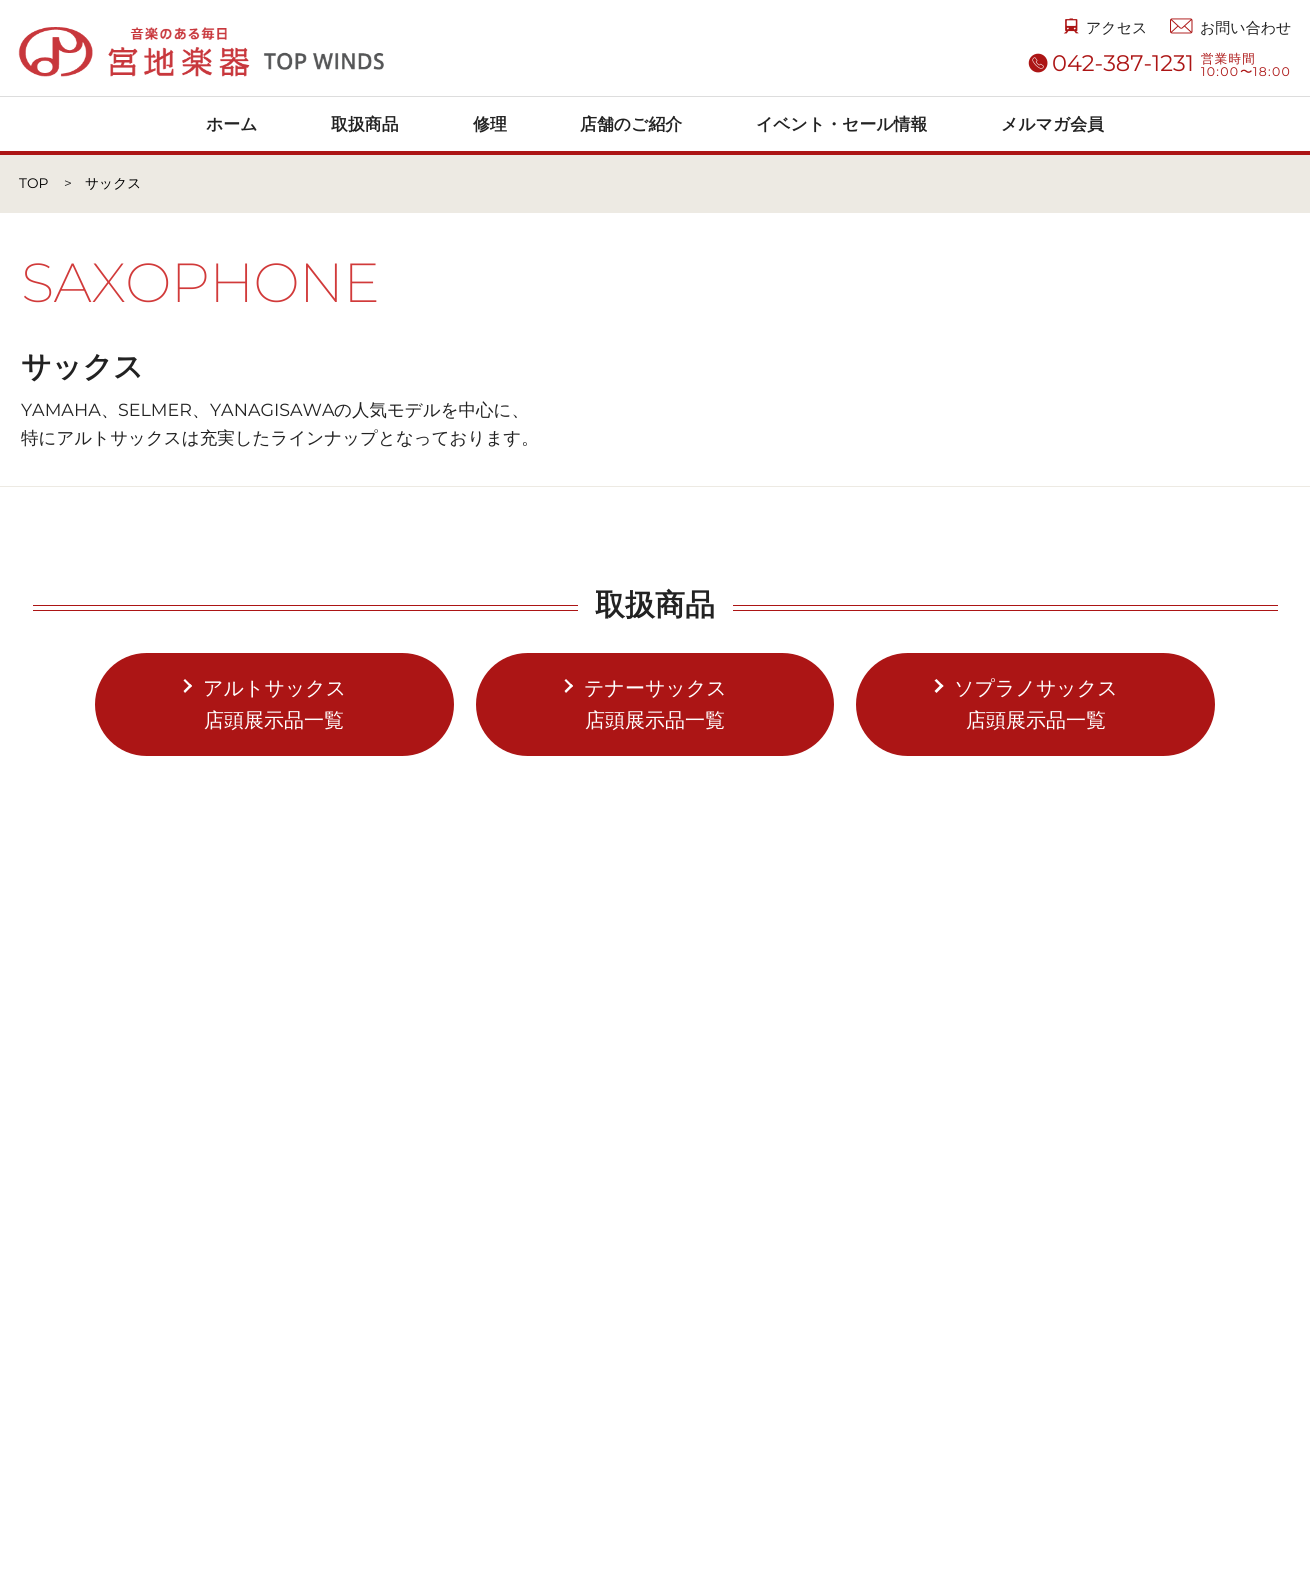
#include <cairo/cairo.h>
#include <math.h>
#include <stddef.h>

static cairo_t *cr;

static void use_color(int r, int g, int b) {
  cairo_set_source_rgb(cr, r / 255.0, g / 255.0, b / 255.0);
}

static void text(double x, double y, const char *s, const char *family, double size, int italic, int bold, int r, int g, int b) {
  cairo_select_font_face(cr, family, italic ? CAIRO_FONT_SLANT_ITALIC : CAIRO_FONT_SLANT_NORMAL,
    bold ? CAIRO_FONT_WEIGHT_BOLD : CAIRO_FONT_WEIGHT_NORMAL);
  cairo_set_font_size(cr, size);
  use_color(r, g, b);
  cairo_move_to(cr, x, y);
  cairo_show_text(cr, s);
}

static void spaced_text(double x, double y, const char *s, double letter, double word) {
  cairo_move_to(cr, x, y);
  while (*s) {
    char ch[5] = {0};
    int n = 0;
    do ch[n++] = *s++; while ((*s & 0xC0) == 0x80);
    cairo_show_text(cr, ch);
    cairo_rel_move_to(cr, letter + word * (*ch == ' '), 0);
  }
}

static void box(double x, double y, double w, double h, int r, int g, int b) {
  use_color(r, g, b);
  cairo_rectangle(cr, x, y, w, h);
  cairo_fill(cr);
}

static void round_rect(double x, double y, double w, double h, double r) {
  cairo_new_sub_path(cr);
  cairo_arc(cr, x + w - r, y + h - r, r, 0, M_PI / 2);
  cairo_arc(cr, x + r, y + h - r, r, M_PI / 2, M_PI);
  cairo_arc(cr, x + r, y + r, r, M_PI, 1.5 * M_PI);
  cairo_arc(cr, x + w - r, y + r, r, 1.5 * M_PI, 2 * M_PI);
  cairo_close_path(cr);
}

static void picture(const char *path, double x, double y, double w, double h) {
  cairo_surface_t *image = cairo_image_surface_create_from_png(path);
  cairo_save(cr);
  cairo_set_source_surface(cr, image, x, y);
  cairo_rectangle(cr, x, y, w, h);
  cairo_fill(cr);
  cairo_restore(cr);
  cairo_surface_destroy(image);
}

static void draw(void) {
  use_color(255, 255, 255);
  cairo_paint(cr);
  box(0, 151, 1310, 4, 172, 21, 21);
  box(0, 96, 1310, 1, 221, 221, 221);
  picture("img_01.png", 18, 27, 366, 50);
  picture("img_02.png", 1063, 18, 16, 16);
  picture("img_03.png", 1170, 18, 23, 16);
  picture("img_04.png", 1028, 53, 20, 20);
  box(0, 155, 1310, 58, 237, 234, 227);
  box(0, 486, 1310, 1, 237, 234, 227);
  box(33, 605, 545, 1, 172, 21, 21);
  box(33, 610, 545, 1, 172, 21, 21);
  box(733, 605, 545, 1, 172, 21, 21);
  box(733, 610, 545, 1, 172, 21, 21);
  round_rect(95, 653, 359, 103, 51.5);
  cairo_fill(cr);
  use_color(255, 255, 255);
  cairo_new_path(cr);
  cairo_move_to(cr, 185, 679);
  cairo_line_to(cr, 192, 686);
  cairo_line_to(cr, 190.5, 687.5);
  cairo_line_to(cr, 183.5, 680.5);
  cairo_close_path(cr);
  cairo_fill(cr);
  cairo_new_path(cr);
  cairo_move_to(cr, 190.5, 684);
  cairo_line_to(cr, 192, 686);
  cairo_line_to(cr, 185, 693);
  cairo_line_to(cr, 183.5, 691);
  cairo_close_path(cr);
  cairo_fill(cr);
  use_color(172, 21, 21);
  round_rect(476, 653, 358, 103, 51.5);
  cairo_fill(cr);
  use_color(255, 255, 255);
  cairo_new_path(cr);
  cairo_move_to(cr, 566, 679);
  cairo_line_to(cr, 573, 686);
  cairo_line_to(cr, 571.5, 687.5);
  cairo_line_to(cr, 564.5, 680.5);
  cairo_close_path(cr);
  cairo_fill(cr);
  cairo_new_path(cr);
  cairo_move_to(cr, 571.5, 684);
  cairo_line_to(cr, 573, 686);
  cairo_line_to(cr, 566, 693);
  cairo_line_to(cr, 564.5, 691);
  cairo_close_path(cr);
  cairo_fill(cr);
  use_color(172, 21, 21);
  round_rect(856, 653, 359, 103, 51.5);
  cairo_fill(cr);
  use_color(255, 255, 255);
  cairo_new_path(cr);
  cairo_move_to(cr, 936.5, 679);
  cairo_line_to(cr, 943.5, 686);
  cairo_line_to(cr, 941.5, 687.5);
  cairo_line_to(cr, 934.5, 680.5);
  cairo_close_path(cr);
  cairo_fill(cr);
  cairo_new_path(cr);
  cairo_move_to(cr, 941.5, 684);
  cairo_line_to(cr, 943.5, 686);
  cairo_line_to(cr, 936.5, 693);
  cairo_line_to(cr, 934.5, 691);
  cairo_close_path(cr);
  cairo_fill(cr);
  text(1086, 33, "アクセス", "WenQuanYi Zen Hei Medium", 15, 0, 0, 34, 34, 34);
  text(1200, 33, "お問い合わせ", "WenQuanYi Zen Hei Medium", 15, 0, 0, 34, 34, 34);
  text(1052, 71, "042-387-1231", "Montserrat", 22.5, 0, 0, 172, 21, 21);
  cairo_select_font_face(cr, "WenQuanYi Zen Hei Medium", CAIRO_FONT_SLANT_NORMAL, CAIRO_FONT_WEIGHT_NORMAL);
  cairo_set_font_size(cr, 12.5);
  spaced_text(1201, 63, "営業時間", 1.25, 0);
  cairo_select_font_face(cr, "Montserrat", CAIRO_FONT_SLANT_NORMAL, CAIRO_FONT_WEIGHT_NORMAL);
  spaced_text(1201, 76, "10:00", 1.25, 0);
  cairo_select_font_face(cr, "WenQuanYi Zen Hei Medium", CAIRO_FONT_SLANT_NORMAL, CAIRO_FONT_WEIGHT_NORMAL);
  spaced_text(1240, 76, "〜", 1.25, 0);
  cairo_select_font_face(cr, "Montserrat", CAIRO_FONT_SLANT_NORMAL, CAIRO_FONT_WEIGHT_NORMAL);
  spaced_text(1253, 76, "18:00", 1.25, 0);
  text(206, 130, "ホーム", "WenQuanYi Zen Hei", 16.9, 0, 1, 34, 34, 34);
  text(331, 130, "取扱商品", "WenQuanYi Zen Hei", 16.9, 0, 1, 34, 34, 34);
  text(473, 130, "修理", "WenQuanYi Zen Hei", 16.9, 0, 1, 34, 34, 34);
  text(580, 130, "店舗のご紹介", "WenQuanYi Zen Hei", 16.9, 0, 1, 34, 34, 34);
  text(756, 130, "イベント・セール情報", "WenQuanYi Zen Hei", 16.9, 0, 1, 34, 34, 34);
  text(1001, 130, "メルマガ会員", "WenQuanYi Zen Hei", 16.9, 0, 1, 34, 34, 34);
  text(19, 188, "TOP", "Montserrat", 13.75, 0, 0, 0, 0, 0);
  text(64, 188, ">", "Montserrat", 13.75, 0, 0, 34, 34, 34);
  text(85, 188, "サックス", "WenQuanYi Zen Hei Medium", 13.75, 0, 0, 0, 0, 0);
  cairo_select_font_face(cr, "Montserrat ExtraLight", CAIRO_FONT_SLANT_NORMAL, CAIRO_FONT_WEIGHT_NORMAL);
  cairo_set_font_size(cr, 55);
  use_color(209, 58, 58);
  spaced_text(21, 302, "SAXOPHONE", -0.6, 0);
  text(21, 377, "サックス", "WenQuanYi Zen Hei", 30, 0, 1, 34, 34, 34);
  text(21, 416, "YAMAHA", "Montserrat", 17.5, 0, 0, 34, 34, 34);
  text(101, 416, "、", "WenQuanYi Zen Hei Medium", 17.5, 0, 0, 34, 34, 34);
  text(118, 416, "SELMER", "Montserrat", 17.5, 0, 0, 34, 34, 34);
  text(192, 416, "、", "WenQuanYi Zen Hei Medium", 17.5, 0, 0, 34, 34, 34);
  text(210, 416, "YANAGISAWA", "Montserrat", 17.5, 0, 0, 34, 34, 34);
  text(334, 416, "の人気モデルを中心に、", "WenQuanYi Zen Hei Medium", 17.5, 0, 0, 34, 34, 34);
  text(21, 444, "特にアルトサックスは充実したラインナップとなっております。", "WenQuanYi Zen Hei Medium", 17.5, 0, 0, 34, 34, 34);
  text(595, 615, "取扱商品", "WenQuanYi Zen Hei", 30, 0, 1, 34, 34, 34);
  text(203, 695, "アルトサックス", "WenQuanYi Zen Hei Medium", 20, 0, 0, 255, 255, 255);
  text(204, 727, "店頭展示品一覧", "WenQuanYi Zen Hei Medium", 20, 0, 0, 255, 255, 255);
  text(584, 695, "テナーサックス", "WenQuanYi Zen Hei Medium", 20, 0, 0, 255, 255, 255);
  text(585, 727, "店頭展示品一覧", "WenQuanYi Zen Hei Medium", 20, 0, 0, 255, 255, 255);
  text(954, 695, "ソプラノサックス", "WenQuanYi Zen Hei Medium", 20, 0, 0, 255, 255, 255);
  text(966, 727, "店頭展示品一覧", "WenQuanYi Zen Hei Medium", 20, 0, 0, 255, 255, 255);
}

int main(void) {
  cairo_surface_t *surface = cairo_image_surface_create(CAIRO_FORMAT_RGB24, 1310, 1579);
  cr = cairo_create(surface);
  cairo_font_options_t *options = cairo_font_options_create();
  cairo_font_options_set_hint_metrics(options, CAIRO_HINT_METRICS_OFF);
  cairo_font_options_set_hint_style(options, CAIRO_HINT_STYLE_NONE);
  cairo_set_font_options(cr, options);
  cairo_set_miter_limit(cr, 4);
  draw();
  cairo_surface_write_to_png(surface, "out.png");
  cairo_font_options_destroy(options);
  cairo_destroy(cr);
  cairo_surface_destroy(surface);
  return 0;
}
